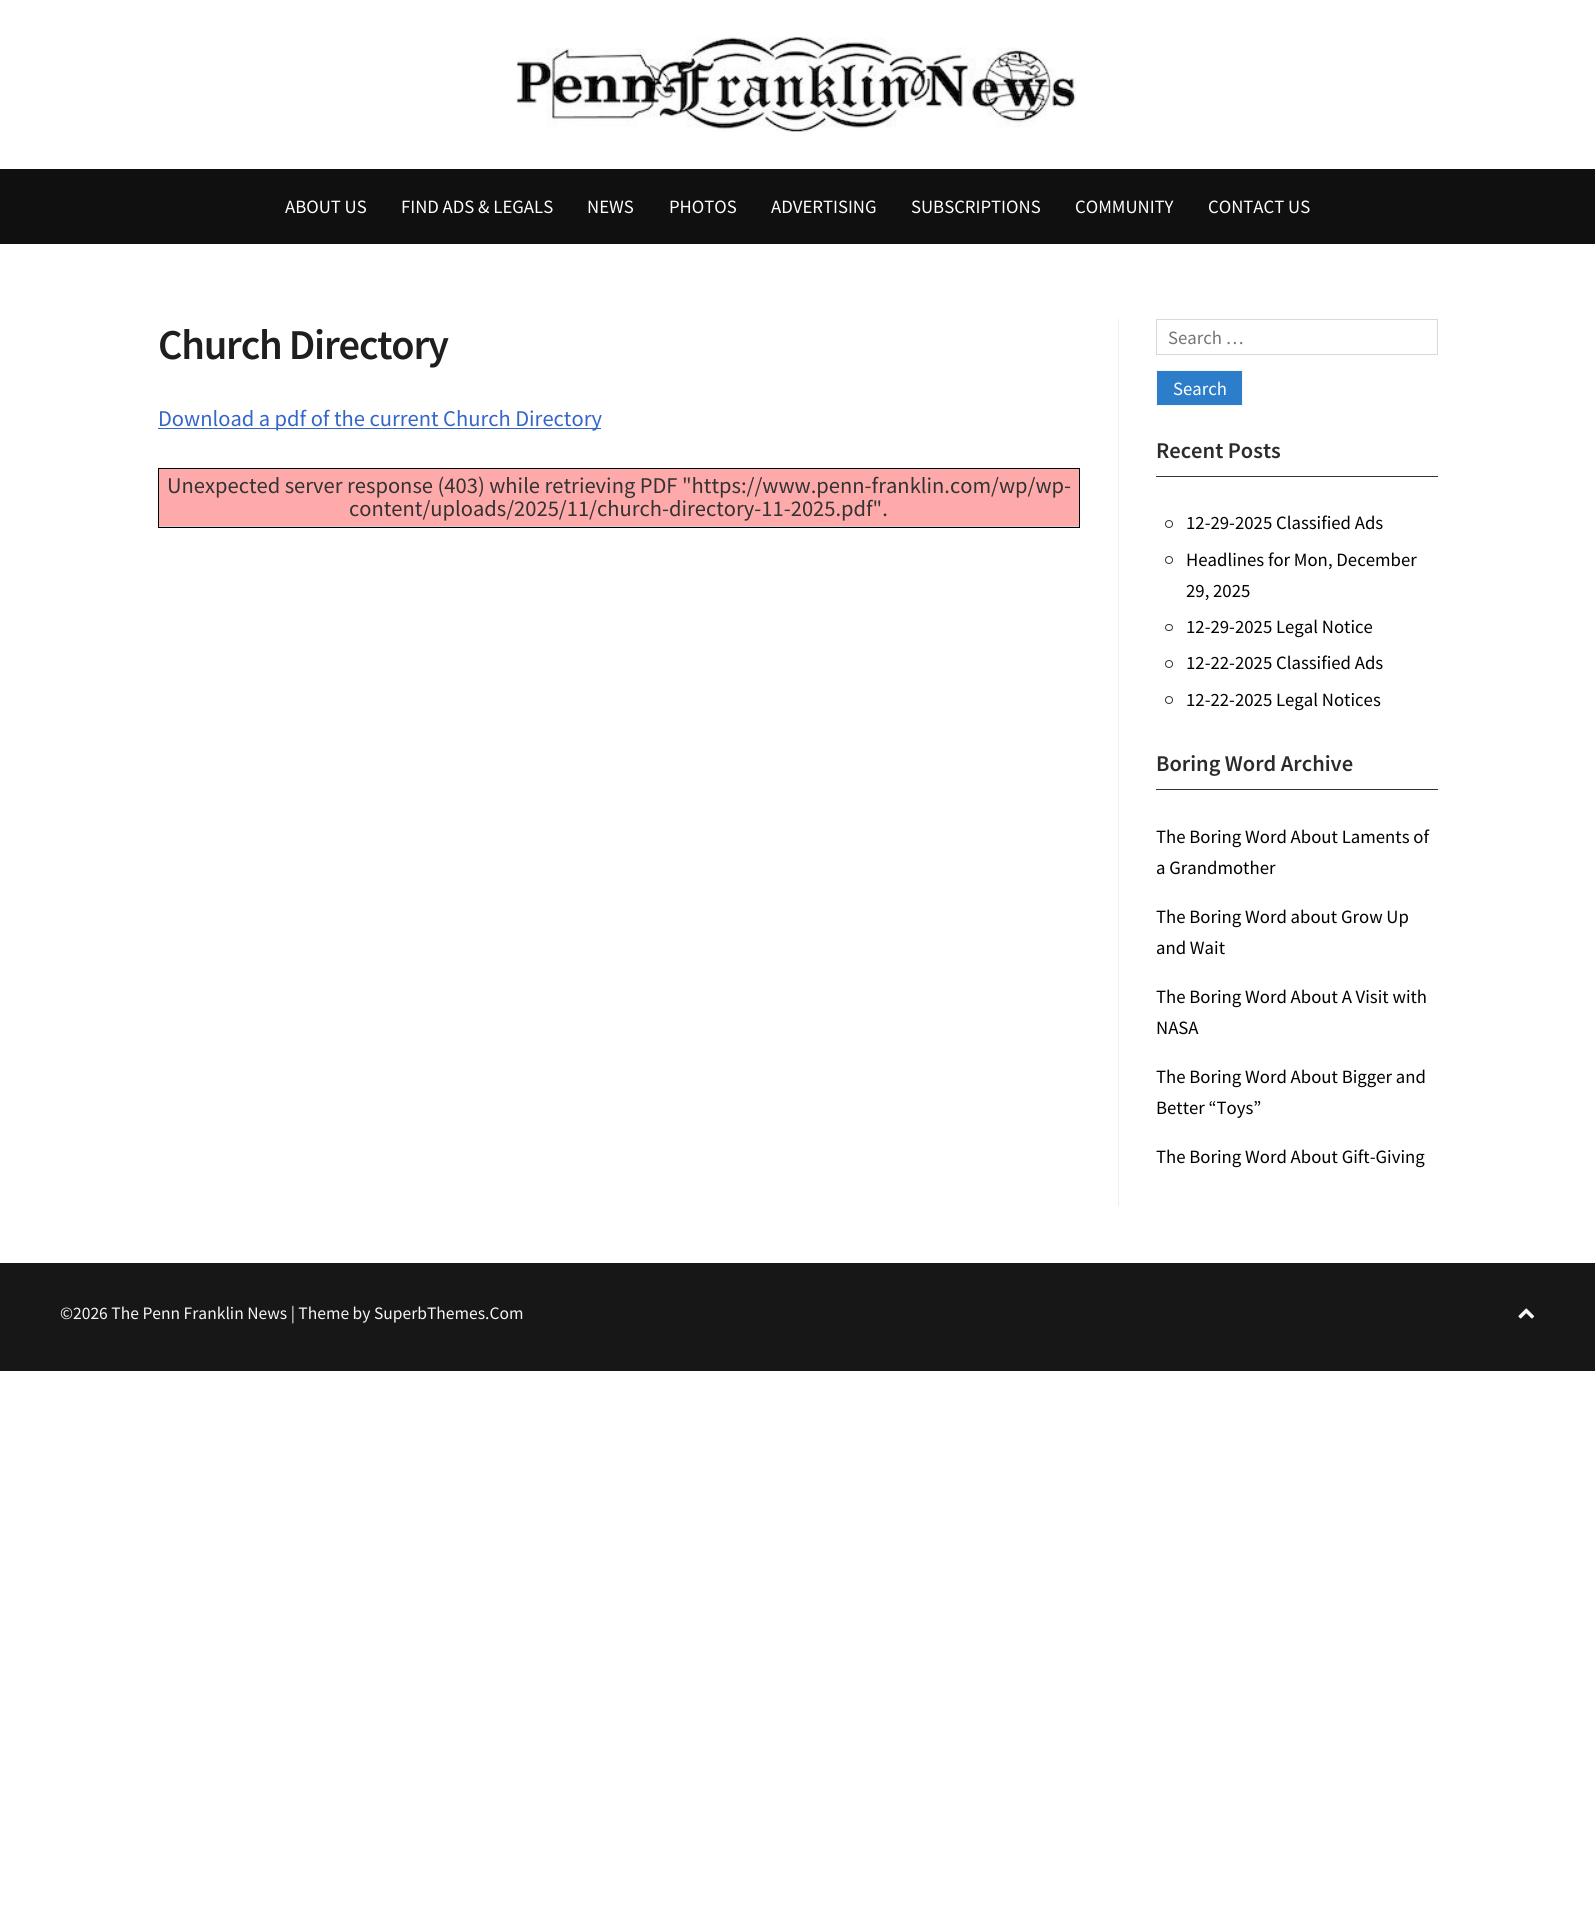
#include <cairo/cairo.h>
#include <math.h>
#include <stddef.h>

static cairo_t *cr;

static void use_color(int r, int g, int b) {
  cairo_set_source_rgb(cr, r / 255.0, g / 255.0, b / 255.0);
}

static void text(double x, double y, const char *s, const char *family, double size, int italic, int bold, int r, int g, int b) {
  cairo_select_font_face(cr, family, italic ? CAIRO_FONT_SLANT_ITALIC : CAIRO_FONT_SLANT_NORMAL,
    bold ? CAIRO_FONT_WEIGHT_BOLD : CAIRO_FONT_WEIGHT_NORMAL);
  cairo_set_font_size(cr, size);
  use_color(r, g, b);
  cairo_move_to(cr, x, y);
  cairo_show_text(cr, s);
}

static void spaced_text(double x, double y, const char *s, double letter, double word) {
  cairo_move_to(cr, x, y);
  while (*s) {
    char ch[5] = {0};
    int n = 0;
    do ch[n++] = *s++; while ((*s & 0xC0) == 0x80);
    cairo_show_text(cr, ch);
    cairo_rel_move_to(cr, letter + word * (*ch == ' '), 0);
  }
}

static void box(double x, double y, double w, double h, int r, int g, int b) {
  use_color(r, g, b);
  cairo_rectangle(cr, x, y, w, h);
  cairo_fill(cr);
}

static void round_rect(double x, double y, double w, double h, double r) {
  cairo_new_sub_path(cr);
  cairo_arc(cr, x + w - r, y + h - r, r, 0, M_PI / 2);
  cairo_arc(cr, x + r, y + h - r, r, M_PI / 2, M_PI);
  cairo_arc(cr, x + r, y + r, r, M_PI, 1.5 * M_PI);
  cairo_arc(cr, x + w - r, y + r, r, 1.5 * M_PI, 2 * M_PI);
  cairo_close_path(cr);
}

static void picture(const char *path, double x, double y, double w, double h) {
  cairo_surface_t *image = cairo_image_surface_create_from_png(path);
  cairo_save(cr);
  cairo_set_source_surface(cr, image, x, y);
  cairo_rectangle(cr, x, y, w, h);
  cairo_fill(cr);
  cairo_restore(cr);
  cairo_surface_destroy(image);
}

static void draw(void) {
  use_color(255, 255, 255);
  cairo_paint(cr);
  picture("img_01.png", 516, 37, 560, 95);
  box(0, 169, 1595, 75, 16, 16, 16);
  box(158, 428, 443, 1, 51, 102, 200);
  box(159, 526, 920, 1, 211, 211, 211);
  cairo_rectangle(cr, 158.5, 468.5, 921, 59);
  use_color(0, 0, 0);
  cairo_set_line_width(cr, 1);
  cairo_stroke(cr);
  box(159, 469, 920, 57, 255, 170, 170);
  box(1118, 319, 1, 887, 238, 238, 238);
  cairo_rectangle(cr, 1156.5, 319.5, 281, 35);
  use_color(217, 217, 217);
  cairo_stroke(cr);
  use_color(45, 126, 202);
  cairo_rectangle(cr, 1156.5, 370.5, 86, 35);
  cairo_fill_preserve(cr);
  use_color(246, 246, 246);
  cairo_stroke(cr);
  box(1156, 476, 282, 1, 51, 51, 51);
  cairo_arc(cr, 1169, 524, 3.5, 0, 2 * M_PI);
  cairo_stroke(cr);
  cairo_arc(cr, 1169, 560, 3.5, 0, 2 * M_PI);
  cairo_stroke(cr);
  round_rect(1165.5, 624.5, 7, 6, 3);
  cairo_stroke(cr);
  cairo_arc(cr, 1169, 664, 3.5, 0, 2 * M_PI);
  cairo_stroke(cr);
  cairo_arc(cr, 1169, 700, 3.5, 0, 2 * M_PI);
  cairo_stroke(cr);
  box(1156, 789, 282, 1, 51, 51, 51);
  box(0, 1263, 1595, 108, 23, 23, 23);
  picture("img_02.png", 1518, 1308, 17, 11);
  text(285, 213, "ABOUT US", "Source Sans Pro", 18.75, 0, 0, 255, 255, 255);
  text(401, 213, "FIND ADS & LEGALS", "Source Sans Pro", 18.75, 0, 0, 255, 255, 255);
  text(587, 213, "NEWS", "Source Sans Pro", 18.75, 0, 0, 255, 255, 255);
  text(669, 213, "PHOTOS", "Source Sans Pro", 18.75, 0, 0, 255, 255, 255);
  text(771, 213, "ADVERTISING", "Source Sans Pro", 18.75, 0, 0, 255, 255, 255);
  text(911, 213, "SUBSCRIPTIONS", "Source Sans Pro", 18.75, 0, 0, 255, 255, 255);
  text(1075, 213, "COMMUNITY", "Source Sans Pro", 18.75, 0, 0, 255, 255, 255);
  text(1208, 213, "CONTACT US", "Source Sans Pro", 18.75, 0, 0, 255, 255, 255);
  cairo_select_font_face(cr, "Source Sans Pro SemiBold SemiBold", CAIRO_FONT_SLANT_NORMAL, CAIRO_FONT_WEIGHT_NORMAL);
  cairo_set_font_size(cr, 42.5);
  use_color(31, 31, 31);
  spaced_text(158, 359, "Church Directory", -1.25, 0);
  text(158, 426, "Download a pdf of the current Church Directory", "Source Sans Pro", 22.5, 0, 0, 51, 102, 200);
  text(167, 493, "Unexpected server response (403) while retrieving PDF \"https://www.penn-franklin.com/wp/wp-", "Source Sans Pro", 22.5, 0, 0, 51, 51, 51);
  text(349, 516, "content/uploads/2025/11/church-directory-11-2025.pdf\".", "Source Sans Pro", 22.5, 0, 0, 51, 51, 51);
  text(1168, 344, "Search …", "Source Sans Pro", 18.75, 0, 0, 117, 117, 117);
  text(1173, 395, "Search", "Source Sans Pro", 18.75, 0, 0, 255, 255, 255);
  text(1156, 458, "Recent Posts", "Source Sans Pro SemiBold SemiBold", 22.5, 0, 0, 43, 43, 43);
  text(1186, 529, "12-29-2025 Classified Ads", "Source Sans Pro", 18.75, 0, 0, 0, 0, 0);
  text(1186, 566, "Headlines for Mon, December", "Source Sans Pro", 18.75, 0, 0, 0, 0, 0);
  text(1186, 597, "29, 2025", "Source Sans Pro", 18.75, 0, 0, 0, 0, 0);
  text(1186, 633, "12-29-2025 Legal Notice", "Source Sans Pro", 18.75, 0, 0, 0, 0, 0);
  text(1186, 669, "12-22-2025 Classified Ads", "Source Sans Pro", 18.75, 0, 0, 0, 0, 0);
  text(1186, 706, "12-22-2025 Legal Notices", "Source Sans Pro", 18.75, 0, 0, 0, 0, 0);
  text(1156, 771, "Boring Word Archive", "Source Sans Pro SemiBold SemiBold", 22.5, 0, 0, 43, 43, 43);
  text(1156, 843, "The Boring Word About Laments of", "Source Sans Pro", 18.75, 0, 0, 0, 0, 0);
  text(1156, 874, "a Grandmother", "Source Sans Pro", 18.75, 0, 0, 0, 0, 0);
  text(1156, 923, "The Boring Word about Grow Up", "Source Sans Pro", 18.75, 0, 0, 0, 0, 0);
  text(1156, 954, "and Wait", "Source Sans Pro", 18.75, 0, 0, 0, 0, 0);
  text(1156, 1003, "The Boring Word About A Visit with", "Source Sans Pro", 18.75, 0, 0, 0, 0, 0);
  text(1156, 1034, "NASA", "Source Sans Pro", 18.75, 0, 0, 0, 0, 0);
  text(1156, 1083, "The Boring Word About Bigger and", "Source Sans Pro", 18.75, 0, 0, 0, 0, 0);
  text(1156, 1114, "Better “Toys”", "Source Sans Pro", 18.75, 0, 0, 0, 0, 0);
  text(1156, 1163, "The Boring Word About Gift-Giving", "Source Sans Pro", 18.75, 0, 0, 0, 0, 0);
  text(60, 1319, "©2026 The Penn Franklin News | Theme by SuperbThemes.Com", "Source Sans Pro", 17.5, 0, 0, 246, 246, 246);
}

int main(void) {
  cairo_surface_t *surface = cairo_image_surface_create(CAIRO_FORMAT_RGB24, 1595, 1929);
  cr = cairo_create(surface);
  cairo_font_options_t *options = cairo_font_options_create();
  cairo_font_options_set_hint_metrics(options, CAIRO_HINT_METRICS_OFF);
  cairo_font_options_set_hint_style(options, CAIRO_HINT_STYLE_NONE);
  cairo_set_font_options(cr, options);
  cairo_set_miter_limit(cr, 4);
  draw();
  cairo_surface_write_to_png(surface, "out.png");
  cairo_font_options_destroy(options);
  cairo_destroy(cr);
  cairo_surface_destroy(surface);
  return 0;
}
